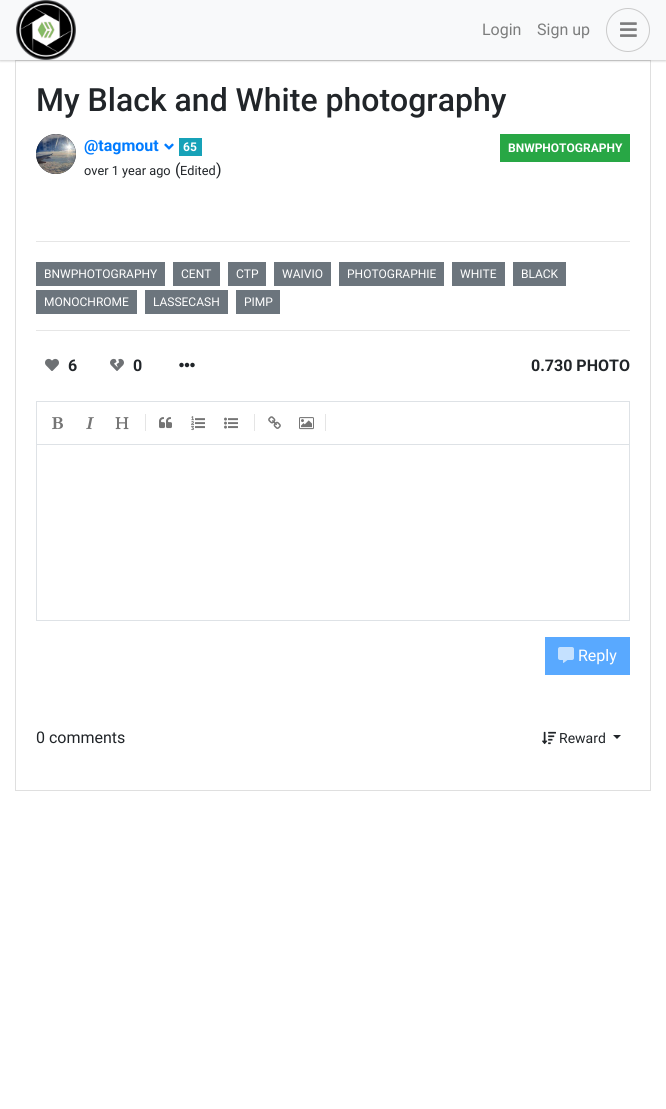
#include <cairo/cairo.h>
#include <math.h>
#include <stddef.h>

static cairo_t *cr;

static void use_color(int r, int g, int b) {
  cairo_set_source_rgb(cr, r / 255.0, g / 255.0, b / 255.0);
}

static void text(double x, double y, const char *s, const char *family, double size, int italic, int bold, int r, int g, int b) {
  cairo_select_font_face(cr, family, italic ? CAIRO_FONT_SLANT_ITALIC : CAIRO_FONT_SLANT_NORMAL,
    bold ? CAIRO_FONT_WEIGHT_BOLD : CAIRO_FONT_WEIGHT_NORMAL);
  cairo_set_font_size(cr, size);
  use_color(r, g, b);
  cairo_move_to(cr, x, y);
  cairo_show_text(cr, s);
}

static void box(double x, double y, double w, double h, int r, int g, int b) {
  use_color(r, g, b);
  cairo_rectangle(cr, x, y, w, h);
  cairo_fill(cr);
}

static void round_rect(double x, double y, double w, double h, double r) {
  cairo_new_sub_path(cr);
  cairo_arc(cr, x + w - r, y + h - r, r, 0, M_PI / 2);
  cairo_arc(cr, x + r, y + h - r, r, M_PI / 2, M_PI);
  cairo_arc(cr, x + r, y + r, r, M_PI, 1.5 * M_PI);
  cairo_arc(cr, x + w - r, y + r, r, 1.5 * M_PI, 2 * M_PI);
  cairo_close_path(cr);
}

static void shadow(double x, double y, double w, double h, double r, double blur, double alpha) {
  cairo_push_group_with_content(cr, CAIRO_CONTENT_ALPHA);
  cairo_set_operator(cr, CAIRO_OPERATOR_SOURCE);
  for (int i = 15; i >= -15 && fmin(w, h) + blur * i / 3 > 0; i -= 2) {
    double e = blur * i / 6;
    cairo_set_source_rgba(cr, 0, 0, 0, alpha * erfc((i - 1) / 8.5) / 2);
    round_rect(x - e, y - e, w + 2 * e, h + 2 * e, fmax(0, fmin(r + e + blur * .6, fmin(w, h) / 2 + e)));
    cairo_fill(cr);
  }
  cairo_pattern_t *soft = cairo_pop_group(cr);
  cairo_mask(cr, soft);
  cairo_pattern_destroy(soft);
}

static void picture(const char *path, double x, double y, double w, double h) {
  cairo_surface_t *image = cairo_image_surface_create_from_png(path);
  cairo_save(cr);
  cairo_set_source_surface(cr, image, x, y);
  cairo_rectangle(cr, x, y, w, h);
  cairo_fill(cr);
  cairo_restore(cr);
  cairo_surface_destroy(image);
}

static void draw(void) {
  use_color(255, 255, 255);
  cairo_paint(cr);
  cairo_rectangle(cr, 15.5, 60.5, 635, 730);
  use_color(223, 223, 223);
  cairo_set_line_width(cr, 1);
  cairo_stroke(cr);
  use_color(0, 0, 0);
  shadow(0, 1, 666, 60, 0, 1, 0.14);
  shadow(0, 1, 666, 60, 0, 1.5, 0.07);
  box(0, 0, 666, 60, 248, 249, 250);
  picture("img_01.png", 16, 0, 60, 60);
  cairo_arc(cr, 628, 30, 21.5, 0, 2 * M_PI);
  use_color(202, 202, 202);
  cairo_stroke(cr);
  picture("img_02.png", 620, 22, 17, 15);
  use_color(52, 58, 64);
  cairo_arc(cr, 56, 154, 20, 0, 2 * M_PI);
  cairo_fill(cr);
  picture("img_03.png", 36, 134, 40, 40);
  picture("img_04.png", 164, 143, 10, 7);
  box(179, 138, 23, 18, 23, 162, 184);
  box(500, 134, 130, 28, 40, 167, 69);
  box(36, 241, 594, 1, 230, 230, 230);
  box(36, 262, 129, 24, 108, 117, 125);
  box(173, 262, 47, 24, 108, 117, 125);
  box(228, 262, 38, 24, 108, 117, 125);
  box(274, 262, 57, 24, 108, 117, 125);
  box(339, 262, 105, 24, 108, 117, 125);
  box(452, 262, 53, 24, 108, 117, 125);
  box(513, 262, 53, 24, 108, 117, 125);
  box(36, 290, 101, 24, 108, 117, 125);
  box(145, 290, 83, 24, 108, 117, 125);
  box(236, 290, 44, 24, 108, 117, 125);
  box(36, 330, 594, 1, 230, 230, 230);
  picture("img_05.png", 45, 358, 14, 13);
  picture("img_06.png", 110, 358, 14, 13);
  picture("img_07.png", 179, 362, 16, 6);
  cairo_rectangle(cr, 36.5, 401.5, 593, 219);
  use_color(222, 226, 230);
  cairo_stroke(cr);
  box(37, 444, 592, 1, 222, 226, 230);
  picture("img_08.png", 52, 417, 11, 13);
  picture("img_09.png", 86, 417, 8, 13);
  picture("img_10.png", 115, 417, 14, 13);
  box(145, 414, 1, 17, 229, 229, 229);
  picture("img_11.png", 159, 417, 13, 12);
  picture("img_12.png", 191, 416, 14, 15);
  picture("img_13.png", 224, 417, 14, 12);
  box(254, 414, 1, 17, 229, 229, 229);
  picture("img_14.png", 268, 416, 13, 13);
  picture("img_15.png", 299, 417, 15, 13);
  box(325, 414, 1, 17, 229, 229, 229);
  box(545, 637, 85, 38, 89, 169, 255);
  picture("img_16.png", 558, 647, 16, 16);
  picture("img_17.png", 542, 731, 14, 14);
  use_color(33, 37, 41);
  cairo_new_path(cr);
  cairo_move_to(cr, 613, 735);
  cairo_line_to(cr, 621, 735);
  cairo_line_to(cr, 617, 739);
  cairo_close_path(cr);
  cairo_fill(cr);
  text(482, 35, "Login", "Roboto", 16, 0, 0, 124, 125, 125);
  text(537, 35, "Sign up", "Roboto", 16, 0, 0, 124, 125, 125);
  text(36, 111, "My Black and White photography", "Roboto Medium", 32, 0, 0, 33, 37, 41);
  text(84, 151, "@tagmout", "Roboto", 16, 0, 1, 0, 123, 255);
  text(183, 151, "65", "Roboto", 12, 0, 1, 255, 255, 255);
  text(84, 175, "over 1 year ago", "Roboto", 12.75, 0, 0, 33, 37, 41);
  text(175, 175, "(", "Roboto", 16, 0, 0, 33, 37, 41);
  text(180, 175, "Edited", "Roboto", 12.75, 0, 0, 33, 37, 41);
  text(216, 175, ")", "Roboto", 16, 0, 0, 33, 37, 41);
  text(508, 152, "BNWPHOTOGRAPHY", "Roboto", 12, 0, 1, 255, 255, 255);
  text(44, 278, "BNWPHOTOGRAPHY", "Roboto", 12, 0, 0, 255, 255, 255);
  text(181, 278, "CENT", "Roboto", 12, 0, 0, 255, 255, 255);
  text(236, 278, "CTP", "Roboto", 12, 0, 0, 255, 255, 255);
  text(282, 278, "WAIVIO", "Roboto", 12, 0, 0, 255, 255, 255);
  text(347, 278, "PHOTOGRAPHIE", "Roboto", 12, 0, 0, 255, 255, 255);
  text(460, 278, "WHITE", "Roboto", 12, 0, 0, 255, 255, 255);
  text(521, 278, "BLACK", "Roboto", 12, 0, 0, 255, 255, 255);
  text(44, 306, "MONOCHROME", "Roboto", 12, 0, 0, 255, 255, 255);
  text(153, 306, "LASSECASH", "Roboto", 12, 0, 0, 255, 255, 255);
  text(244, 306, "PIMP", "Roboto", 12, 0, 0, 255, 255, 255);
  text(68, 371, "6", "Roboto", 16, 0, 1, 33, 37, 41);
  text(133, 371, "0", "Roboto", 16, 0, 1, 33, 37, 41);
  text(531, 371, "0.730 PHOTO", "Roboto", 16, 0, 1, 33, 37, 41);
  text(578, 661, "Reply", "Roboto", 16, 0, 0, 255, 255, 255);
  text(36, 743, "0 comments", "Roboto", 16, 0, 0, 33, 37, 41);
  text(559, 743, "Reward", "Roboto", 14, 0, 0, 33, 37, 41);
}

int main(void) {
  cairo_surface_t *surface = cairo_image_surface_create(CAIRO_FORMAT_RGB24, 666, 1109);
  cr = cairo_create(surface);
  cairo_font_options_t *options = cairo_font_options_create();
  cairo_font_options_set_hint_metrics(options, CAIRO_HINT_METRICS_OFF);
  cairo_font_options_set_hint_style(options, CAIRO_HINT_STYLE_NONE);
  cairo_set_font_options(cr, options);
  cairo_set_miter_limit(cr, 4);
  draw();
  cairo_surface_write_to_png(surface, "out.png");
  cairo_font_options_destroy(options);
  cairo_destroy(cr);
  cairo_surface_destroy(surface);
  return 0;
}
